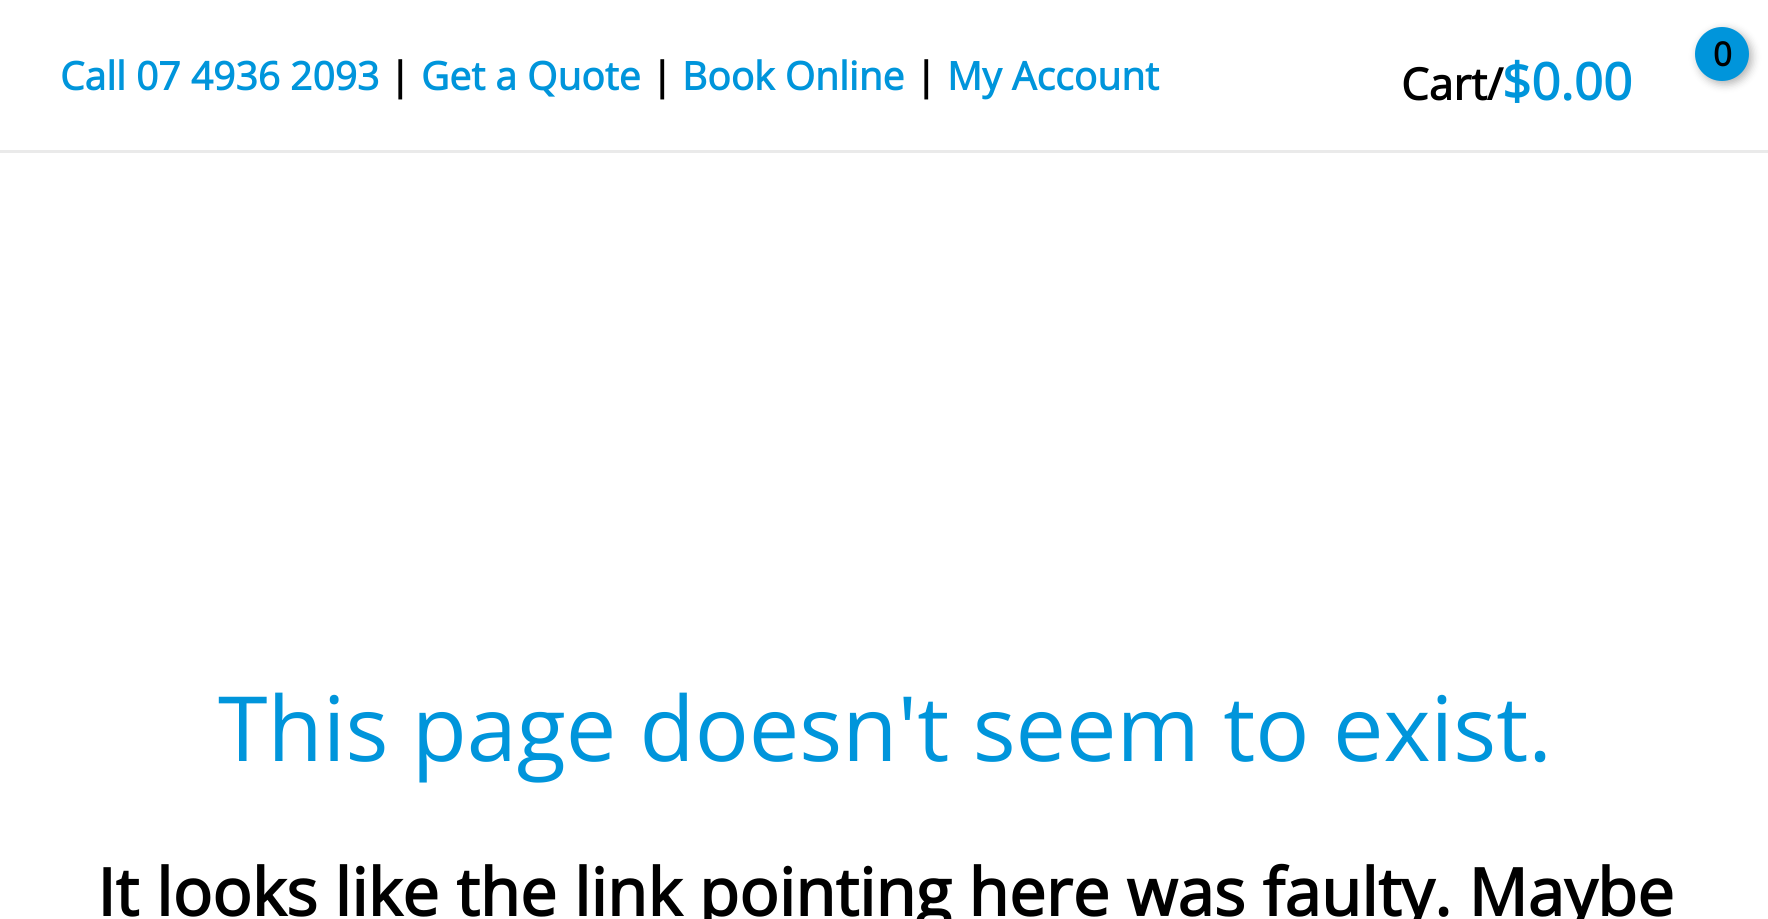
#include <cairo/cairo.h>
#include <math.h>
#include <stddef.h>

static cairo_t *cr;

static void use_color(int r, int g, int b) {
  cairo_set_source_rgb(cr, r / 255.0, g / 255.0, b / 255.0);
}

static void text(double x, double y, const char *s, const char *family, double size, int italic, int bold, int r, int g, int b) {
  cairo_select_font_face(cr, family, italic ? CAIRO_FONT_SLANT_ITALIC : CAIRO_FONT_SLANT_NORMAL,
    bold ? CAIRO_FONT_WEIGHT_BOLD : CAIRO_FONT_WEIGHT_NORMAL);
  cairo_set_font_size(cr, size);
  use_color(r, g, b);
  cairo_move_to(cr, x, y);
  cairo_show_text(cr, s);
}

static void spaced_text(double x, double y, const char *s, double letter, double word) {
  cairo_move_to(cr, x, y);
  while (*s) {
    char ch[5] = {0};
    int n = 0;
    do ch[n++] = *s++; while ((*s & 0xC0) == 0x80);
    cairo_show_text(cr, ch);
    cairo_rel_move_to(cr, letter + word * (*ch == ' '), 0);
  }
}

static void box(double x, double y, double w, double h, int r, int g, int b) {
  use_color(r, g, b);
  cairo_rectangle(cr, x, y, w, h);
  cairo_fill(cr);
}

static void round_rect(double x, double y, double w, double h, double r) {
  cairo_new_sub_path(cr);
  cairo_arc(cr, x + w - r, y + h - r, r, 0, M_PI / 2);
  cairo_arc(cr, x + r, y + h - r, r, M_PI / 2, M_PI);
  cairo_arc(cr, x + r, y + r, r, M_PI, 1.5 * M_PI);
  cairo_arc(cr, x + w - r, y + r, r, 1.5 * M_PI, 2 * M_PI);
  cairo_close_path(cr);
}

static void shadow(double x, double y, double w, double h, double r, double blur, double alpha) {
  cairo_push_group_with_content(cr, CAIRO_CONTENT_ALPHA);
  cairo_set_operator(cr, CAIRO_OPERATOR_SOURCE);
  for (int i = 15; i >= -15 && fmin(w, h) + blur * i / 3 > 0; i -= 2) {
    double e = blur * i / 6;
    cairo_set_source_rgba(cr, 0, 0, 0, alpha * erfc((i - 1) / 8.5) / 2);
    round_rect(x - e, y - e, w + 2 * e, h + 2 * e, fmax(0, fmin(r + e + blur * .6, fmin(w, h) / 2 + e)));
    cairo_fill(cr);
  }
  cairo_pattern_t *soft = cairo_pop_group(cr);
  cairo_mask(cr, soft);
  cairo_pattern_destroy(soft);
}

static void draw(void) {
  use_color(255, 255, 255);
  cairo_paint(cr);
  box(0, 150, 1768, 3, 234, 234, 234);
  use_color(0, 0, 0);
  shadow(1698, 30, 54, 54, 27, 4.5, 0.3);
  use_color(0, 149, 219);
  cairo_arc(cr, 1722, 54, 27, 0, 2 * M_PI);
  cairo_fill(cr);
  text(60, 90, "Call 07 4936 2093", "Open Sans", 39, 0, 1, 0, 149, 219);
  text(389, 90, "|", "Open Sans", 39, 0, 1, 0, 0, 0);
  text(421, 90, "Get a Quote", "Open Sans", 39, 0, 1, 0, 149, 219);
  text(651, 90, "|", "Open Sans", 39, 0, 1, 0, 0, 0);
  text(682, 90, "Book Online", "Open Sans", 39, 0, 1, 0, 149, 219);
  text(915, 90, "|", "Open Sans", 39, 0, 1, 0, 0, 0);
  text(947, 90, "My Account", "Open Sans", 39, 0, 1, 0, 149, 219);
  cairo_set_font_size(cr, 33);
  use_color(0, 0, 0);
  spaced_text(1713, 66, "0", -2, 0);
  text(1401, 100, "Cart/", "Open Sans", 44, 0, 1, 0, 0, 0);
  text(1502, 100, "$0.00", "Open Sans", 51, 0, 1, 0, 149, 219);
  text(218, 761, "This page doesn't seem to exist.", "Open Sans", 90, 0, 0, 0, 149, 219);
  text(97, 916, "It looks like the link pointing here was faulty. Maybe", "Open Sans", 65.7, 0, 1, 0, 0, 0);
}

int main(void) {
  cairo_surface_t *surface = cairo_image_surface_create(CAIRO_FORMAT_RGB24, 1768, 919);
  cr = cairo_create(surface);
  cairo_font_options_t *options = cairo_font_options_create();
  cairo_font_options_set_hint_metrics(options, CAIRO_HINT_METRICS_OFF);
  cairo_font_options_set_hint_style(options, CAIRO_HINT_STYLE_NONE);
  cairo_set_font_options(cr, options);
  cairo_set_miter_limit(cr, 4);
  draw();
  cairo_surface_write_to_png(surface, "out.png");
  cairo_font_options_destroy(options);
  cairo_destroy(cr);
  cairo_surface_destroy(surface);
  return 0;
}
